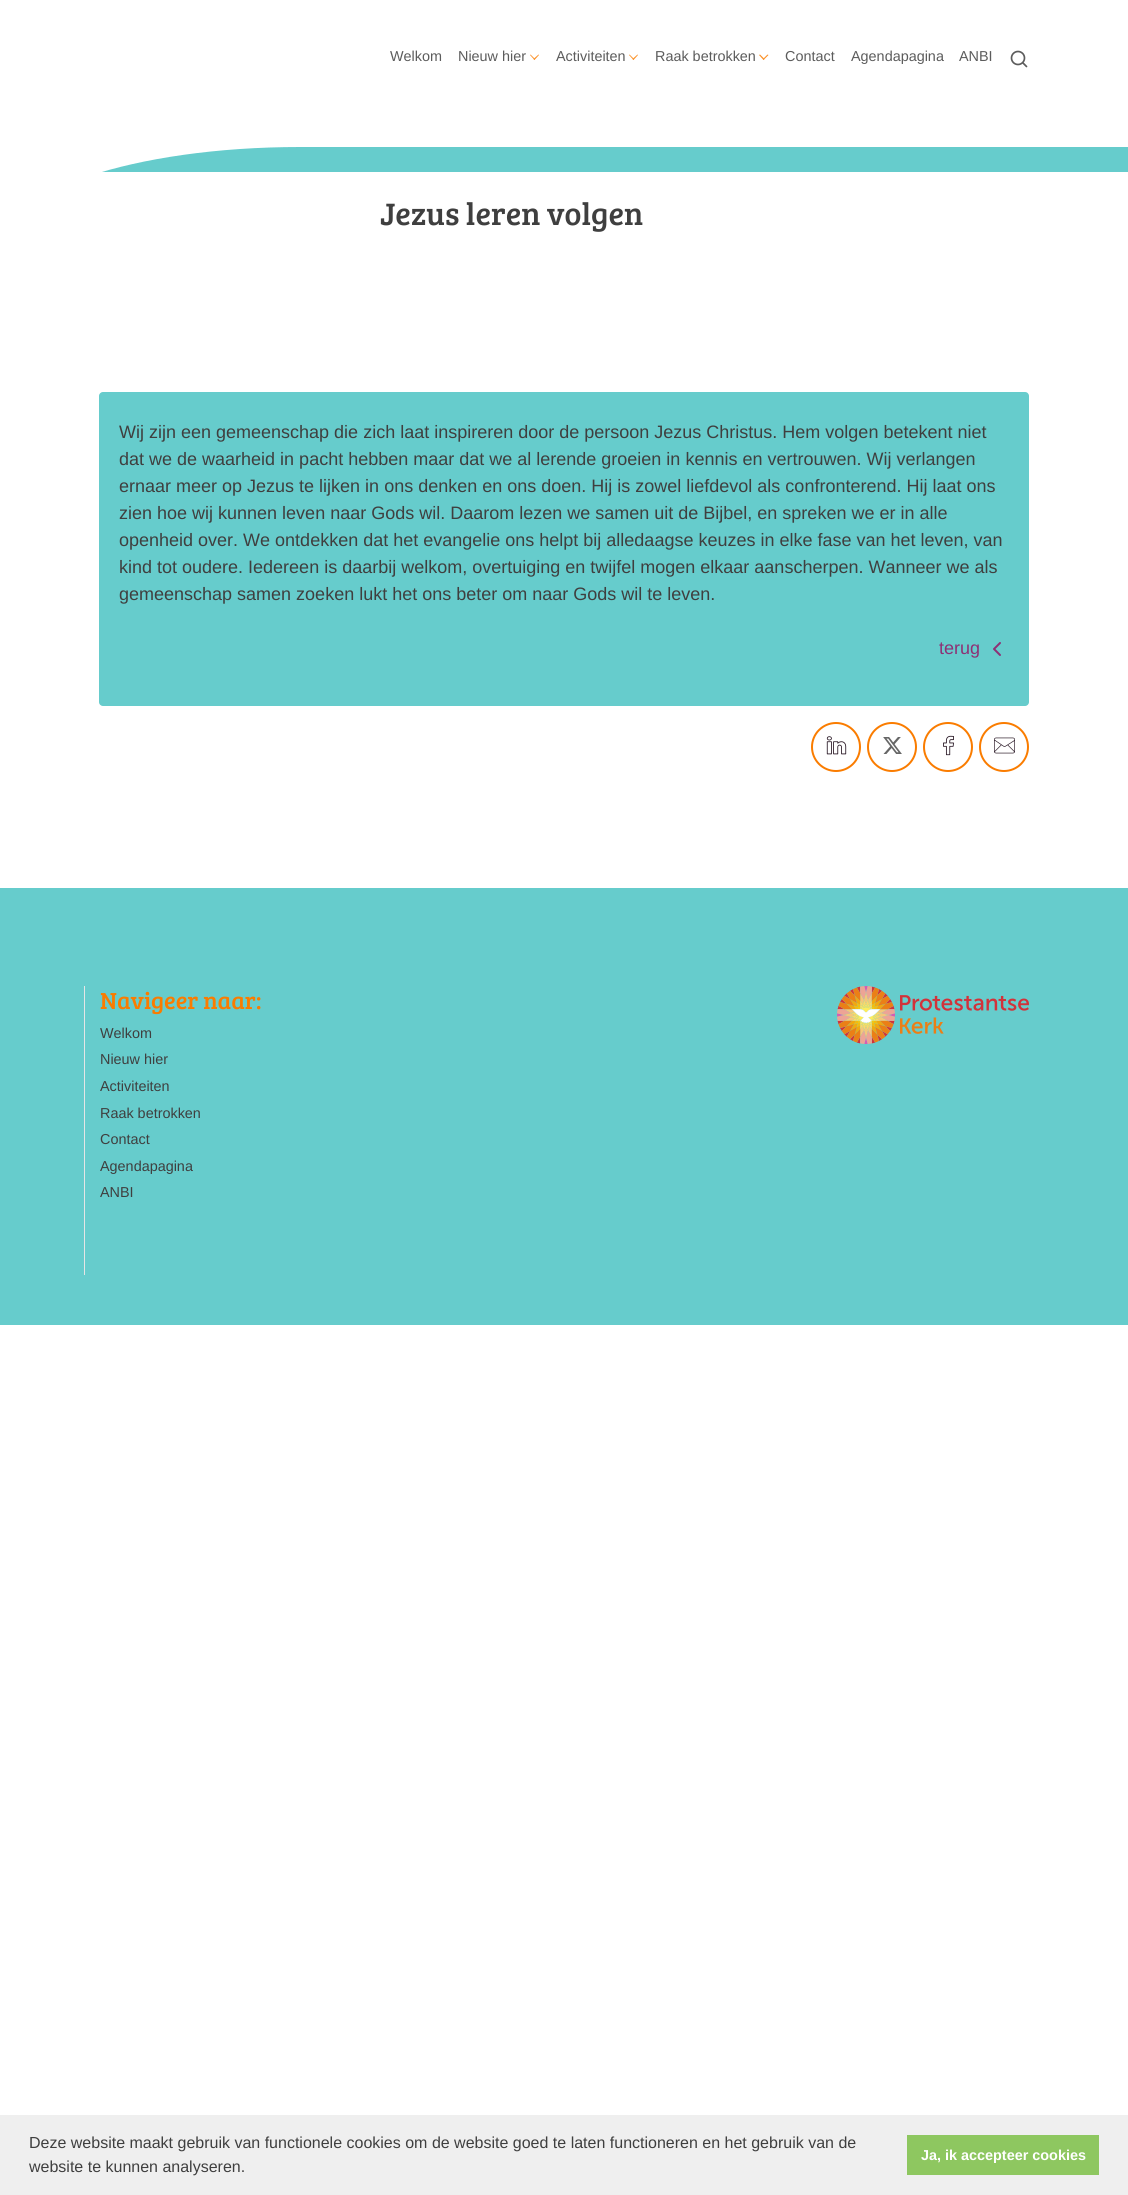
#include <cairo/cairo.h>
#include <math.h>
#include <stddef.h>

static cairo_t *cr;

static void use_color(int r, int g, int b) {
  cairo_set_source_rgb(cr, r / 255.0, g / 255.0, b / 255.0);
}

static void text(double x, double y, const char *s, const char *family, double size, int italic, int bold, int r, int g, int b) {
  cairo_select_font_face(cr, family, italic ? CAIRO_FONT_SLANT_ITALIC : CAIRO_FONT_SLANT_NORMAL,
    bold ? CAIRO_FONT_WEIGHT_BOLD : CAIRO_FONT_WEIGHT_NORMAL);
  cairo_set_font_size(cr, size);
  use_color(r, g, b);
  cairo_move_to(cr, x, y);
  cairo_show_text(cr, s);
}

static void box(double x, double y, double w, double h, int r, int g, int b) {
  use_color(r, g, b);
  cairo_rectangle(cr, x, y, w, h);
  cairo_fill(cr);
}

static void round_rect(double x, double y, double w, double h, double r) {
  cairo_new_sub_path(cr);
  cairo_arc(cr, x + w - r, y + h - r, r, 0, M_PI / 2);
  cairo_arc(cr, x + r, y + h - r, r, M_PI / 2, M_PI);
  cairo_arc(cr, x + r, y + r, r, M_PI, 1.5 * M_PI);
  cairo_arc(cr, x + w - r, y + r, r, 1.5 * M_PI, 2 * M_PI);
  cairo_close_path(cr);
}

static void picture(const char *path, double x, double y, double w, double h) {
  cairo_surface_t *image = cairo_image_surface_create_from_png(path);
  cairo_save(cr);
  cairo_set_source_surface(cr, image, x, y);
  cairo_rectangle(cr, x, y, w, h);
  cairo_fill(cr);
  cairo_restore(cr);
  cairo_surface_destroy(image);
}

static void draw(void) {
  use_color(255, 255, 255);
  cairo_paint(cr);
  use_color(251, 144, 38);
  cairo_new_path(cr);
  cairo_move_to(cr, 539, 55);
  cairo_line_to(cr, 534.5, 60);
  cairo_line_to(cr, 533.5, 59);
  cairo_line_to(cr, 538.5, 54.5);
  cairo_close_path(cr);
  cairo_fill(cr);
  cairo_new_path(cr);
  cairo_move_to(cr, 535, 59);
  cairo_line_to(cr, 534.5, 60);
  cairo_line_to(cr, 530, 55);
  cairo_line_to(cr, 530.5, 54.5);
  cairo_close_path(cr);
  cairo_fill(cr);
  cairo_new_path(cr);
  cairo_move_to(cr, 638, 55);
  cairo_line_to(cr, 633.5, 60);
  cairo_line_to(cr, 632.5, 59);
  cairo_line_to(cr, 637.5, 54.5);
  cairo_close_path(cr);
  cairo_fill(cr);
  cairo_new_path(cr);
  cairo_move_to(cr, 634, 59);
  cairo_line_to(cr, 633.5, 60);
  cairo_line_to(cr, 629, 55);
  cairo_line_to(cr, 629.5, 54.5);
  cairo_close_path(cr);
  cairo_fill(cr);
  cairo_new_path(cr);
  cairo_move_to(cr, 768.5, 55);
  cairo_line_to(cr, 763.5, 60);
  cairo_line_to(cr, 763, 59);
  cairo_line_to(cr, 767.5, 54.5);
  cairo_close_path(cr);
  cairo_fill(cr);
  cairo_new_path(cr);
  cairo_move_to(cr, 764.5, 59);
  cairo_line_to(cr, 763.5, 60);
  cairo_line_to(cr, 759, 55);
  cairo_line_to(cr, 760, 54.5);
  cairo_close_path(cr);
  cairo_fill(cr);
  cairo_arc(cr, 1018, 58, 6.5, 0, 2 * M_PI);
  use_color(92, 92, 92);
  cairo_set_line_width(cr, 1.7);
  cairo_stroke(cr);
  cairo_new_path(cr);
  cairo_move_to(cr, 1026.5, 66.5);
  cairo_line_to(cr, 1023, 63);
  cairo_set_line_cap(cr, CAIRO_LINE_CAP_ROUND);
  cairo_set_line_join(cr, CAIRO_LINE_JOIN_ROUND);
  cairo_stroke(cr);
  use_color(102, 204, 204);
  cairo_new_path(cr);
  cairo_move_to(cr, 300, 147);
  cairo_line_to(cr, 1128, 147);
  cairo_line_to(cr, 1128, 372);
  cairo_line_to(cr, 0, 372);
  cairo_line_to(cr, 0, 247);
  cairo_curve_to(cr, 0, 192, 134, 147, 300, 147);
  cairo_close_path(cr);
  cairo_fill(cr);
  use_color(255, 255, 255);
  cairo_new_path(cr);
  cairo_move_to(cr, 0, 172);
  cairo_line_to(cr, 1128, 172);
  cairo_line_to(cr, 1128, 788);
  cairo_curve_to(cr, 1128, 843, 994, 888, 828, 888);
  cairo_line_to(cr, 0, 888);
  cairo_close_path(cr);
  cairo_fill(cr);
  use_color(102, 204, 204);
  round_rect(99, 392, 930, 314, 4);
  cairo_fill(cr);
  cairo_new_path(cr);
  cairo_move_to(cr, 1000, 655);
  cairo_line_to(cr, 994, 649);
  cairo_line_to(cr, 1000, 643);
  use_color(141, 49, 117);
  cairo_set_line_width(cr, 2);
  cairo_stroke(cr);
  cairo_arc(cr, 836, 747, 24, 0, 2 * M_PI);
  use_color(250, 124, 0);
  cairo_set_line_cap(cr, CAIRO_LINE_CAP_BUTT);
  cairo_set_line_join(cr, CAIRO_LINE_JOIN_MITER);
  cairo_stroke(cr);
  picture("img_01.png", 826, 736, 21, 19);
  cairo_arc(cr, 892, 747, 24, 0, 2 * M_PI);
  cairo_stroke(cr);
  picture("img_02.png", 883, 737, 19, 17);
  cairo_arc(cr, 948, 747, 24, 0, 2 * M_PI);
  cairo_stroke(cr);
  picture("img_03.png", 943, 735, 11, 21);
  cairo_arc(cr, 1004, 747, 24, 0, 2 * M_PI);
  cairo_stroke(cr);
  picture("img_04.png", 994, 737, 21, 17);
  box(0, 888, 1128, 437, 102, 204, 204);
  box(84, 986, 1, 289, 230, 229, 229);
  picture("img_05.png", 837, 986, 58, 58);
  picture("img_06.png", 900, 995, 129, 39);
  box(0, 2115, 1128, 80, 239, 239, 239);
  box(907, 2135, 192, 40, 142, 199, 96);
  text(390, 61, "Welkom", "Liberation Sans", 14.4, 0, 0, 92, 92, 92);
  text(458, 61, "Nieuw hier", "Liberation Sans", 14.4, 0, 0, 92, 92, 92);
  text(556, 61, "Activiteiten", "Liberation Sans", 14.4, 0, 0, 92, 92, 92);
  text(655, 61, "Raak betrokken", "Liberation Sans", 14.4, 0, 0, 92, 92, 92);
  text(785, 61, "Contact", "Liberation Sans", 14.4, 0, 0, 92, 92, 92);
  text(851, 61, "Agendapagina", "Liberation Sans", 14.4, 0, 0, 92, 92, 92);
  text(959, 61, "ANBI", "Liberation Sans", 14.4, 0, 0, 92, 92, 92);
  text(380, 225, "Jezus leren volgen", "Bree Serif", 32, 0, 0, 63, 63, 63);
  text(119, 438, "Wij zijn een gemeenschap die zich laat inspireren door de persoon Jezus Christus. Hem volgen betekent niet", "Liberation Sans", 18, 0, 0, 63, 63, 63);
  text(119, 465, "dat we de waarheid in pacht hebben maar dat we al lerende groeien in kennis en vertrouwen. Wij verlangen", "Liberation Sans", 18, 0, 0, 63, 63, 63);
  text(119, 492, "ernaar meer op Jezus te lijken in ons denken en ons doen. Hij is zowel liefdevol als confronterend. Hij laat ons", "Liberation Sans", 18, 0, 0, 63, 63, 63);
  text(119, 519, "zien hoe wij kunnen leven naar Gods wil. Daarom lezen we samen uit de Bijbel, en spreken we er in alle", "Liberation Sans", 18, 0, 0, 63, 63, 63);
  text(119, 546, "openheid over. We ontdekken dat het evangelie ons helpt bij alledaagse keuzes in elke fase van het leven, van", "Liberation Sans", 18, 0, 0, 63, 63, 63);
  text(119, 573, "kind tot oudere. Iedereen is daarbij welkom, overtuiging en twijfel mogen elkaar aanscherpen. Wanneer we als", "Liberation Sans", 18, 0, 0, 63, 63, 63);
  text(119, 600, "gemeenschap samen zoeken lukt het ons beter om naar Gods wil te leven.", "Liberation Sans", 18, 0, 0, 63, 63, 63);
  text(939, 654, "terug", "Liberation Sans", 18, 0, 0, 141, 49, 117);
  text(100, 1009, "Navigeer naar:", "Bree Serif", 24, 0, 0, 250, 124, 0);
  text(100, 1038, "Welkom", "Liberation Sans", 14.4, 0, 0, 63, 63, 63);
  text(100, 1064, "Nieuw hier", "Liberation Sans", 14.4, 0, 0, 63, 63, 63);
  text(100, 1091, "Activiteiten", "Liberation Sans", 14.4, 0, 0, 63, 63, 63);
  text(100, 1118, "Raak betrokken", "Liberation Sans", 14.4, 0, 0, 63, 63, 63);
  text(100, 1144, "Contact", "Liberation Sans", 14.4, 0, 0, 63, 63, 63);
  text(100, 1171, "Agendapagina", "Liberation Sans", 14.4, 0, 0, 63, 63, 63);
  text(100, 1197, "ANBI", "Liberation Sans", 14.4, 0, 0, 63, 63, 63);
  text(29, 2148, "Deze website maakt gebruik van functionele cookies om de website goed te laten functioneren en het gebruik van de", "Liberation Sans", 16, 0, 0, 63, 63, 63);
  text(29, 2172, "website te kunnen analyseren.", "Liberation Sans", 16, 0, 0, 63, 63, 63);
  text(921, 2160, "Ja, ik accepteer cookies", "Liberation Sans", 14.4, 0, 1, 255, 255, 255);
}

int main(void) {
  cairo_surface_t *surface = cairo_image_surface_create(CAIRO_FORMAT_RGB24, 1128, 2195);
  cr = cairo_create(surface);
  cairo_font_options_t *options = cairo_font_options_create();
  cairo_font_options_set_hint_metrics(options, CAIRO_HINT_METRICS_OFF);
  cairo_font_options_set_hint_style(options, CAIRO_HINT_STYLE_NONE);
  cairo_set_font_options(cr, options);
  cairo_set_miter_limit(cr, 4);
  draw();
  cairo_surface_write_to_png(surface, "out.png");
  cairo_font_options_destroy(options);
  cairo_destroy(cr);
  cairo_surface_destroy(surface);
  return 0;
}
